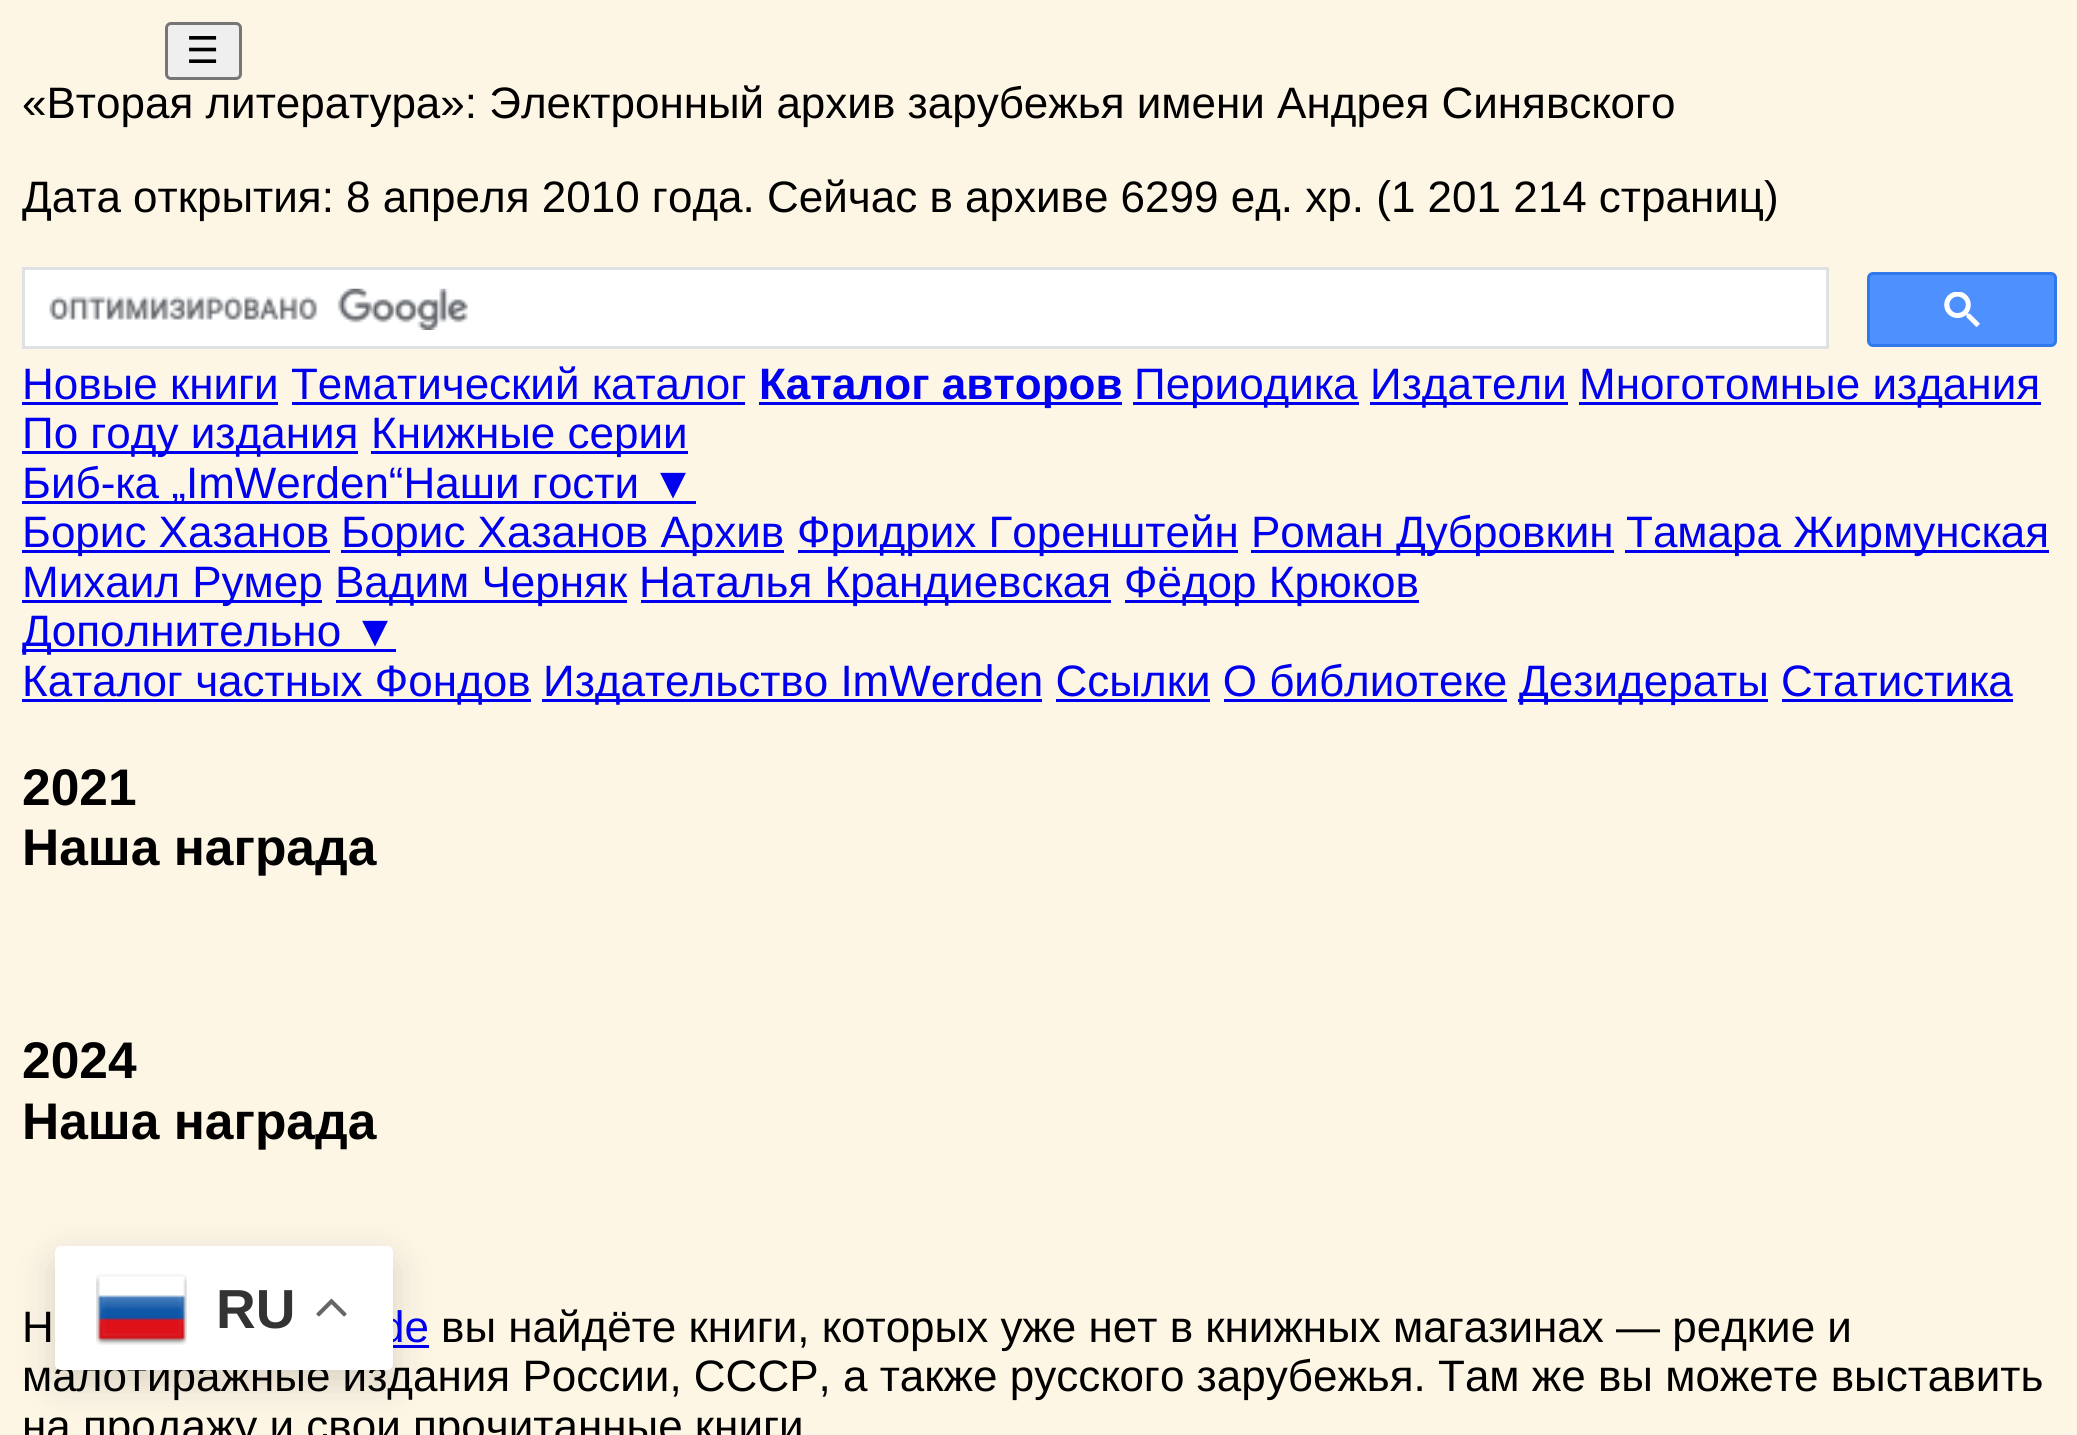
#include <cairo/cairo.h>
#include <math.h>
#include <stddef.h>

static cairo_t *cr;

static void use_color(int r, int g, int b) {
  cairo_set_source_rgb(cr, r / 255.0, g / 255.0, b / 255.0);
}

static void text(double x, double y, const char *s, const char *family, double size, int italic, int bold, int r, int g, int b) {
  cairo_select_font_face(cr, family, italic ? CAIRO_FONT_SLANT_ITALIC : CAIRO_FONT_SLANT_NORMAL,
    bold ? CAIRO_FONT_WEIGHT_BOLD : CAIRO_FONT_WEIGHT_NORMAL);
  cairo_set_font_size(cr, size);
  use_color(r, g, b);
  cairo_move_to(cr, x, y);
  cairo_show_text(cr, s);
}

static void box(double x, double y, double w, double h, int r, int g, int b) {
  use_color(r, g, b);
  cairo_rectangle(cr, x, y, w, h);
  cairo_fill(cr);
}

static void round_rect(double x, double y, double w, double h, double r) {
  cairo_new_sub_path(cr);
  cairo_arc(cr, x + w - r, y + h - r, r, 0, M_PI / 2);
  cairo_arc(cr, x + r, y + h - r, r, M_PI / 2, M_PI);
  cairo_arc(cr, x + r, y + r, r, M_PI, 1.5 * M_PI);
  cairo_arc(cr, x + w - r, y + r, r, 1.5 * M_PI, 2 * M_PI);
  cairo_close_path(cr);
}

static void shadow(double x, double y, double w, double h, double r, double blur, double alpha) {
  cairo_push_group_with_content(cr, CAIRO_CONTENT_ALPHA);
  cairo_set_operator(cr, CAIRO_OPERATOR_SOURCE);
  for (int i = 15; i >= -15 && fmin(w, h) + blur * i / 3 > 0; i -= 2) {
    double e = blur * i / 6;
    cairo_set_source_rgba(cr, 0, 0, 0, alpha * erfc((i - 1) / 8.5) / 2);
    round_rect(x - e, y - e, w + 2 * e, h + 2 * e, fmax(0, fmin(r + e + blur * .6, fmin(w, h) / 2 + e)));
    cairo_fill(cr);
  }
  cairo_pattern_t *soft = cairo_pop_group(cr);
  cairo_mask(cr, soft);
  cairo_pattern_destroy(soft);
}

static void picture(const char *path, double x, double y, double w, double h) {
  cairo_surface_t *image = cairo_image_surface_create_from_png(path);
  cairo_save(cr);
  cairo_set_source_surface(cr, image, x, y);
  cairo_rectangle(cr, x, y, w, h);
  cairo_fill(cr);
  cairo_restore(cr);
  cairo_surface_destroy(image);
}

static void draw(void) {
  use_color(254, 246, 229);
  cairo_paint(cr);
  use_color(239, 239, 239);
  round_rect(166.5, 23.5, 74, 55, 4.5);
  cairo_fill_preserve(cr);
  use_color(118, 118, 118);
  cairo_set_line_width(cr, 3);
  cairo_stroke(cr);
  use_color(255, 255, 255);
  cairo_rectangle(cr, 23.5, 268.5, 1804, 79);
  cairo_fill_preserve(cr);
  use_color(223, 225, 229);
  cairo_stroke(cr);
  picture("img_01.png", 49, 288, 419, 42);
  use_color(77, 144, 254);
  round_rect(1868.5, 273.5, 187, 72, 4.5);
  cairo_fill_preserve(cr);
  use_color(48, 121, 237);
  cairo_stroke(cr);
  picture("img_02.png", 1944, 292, 36, 35);
  box(22, 402, 256, 3, 0, 0, 238);
  box(759, 402, 363, 3, 0, 0, 238);
  box(1133, 402, 226, 3, 0, 0, 238);
  box(1370, 402, 198, 3, 0, 0, 238);
  box(1579, 402, 462, 3, 0, 0, 238);
  box(292, 402, 453, 3, 0, 0, 238);
  box(22, 451, 336, 3, 0, 0, 238);
  box(371, 451, 317, 3, 0, 0, 238);
  box(22, 501, 674, 3, 0, 0, 238);
  box(22, 550, 308, 3, 0, 0, 238);
  box(341, 550, 443, 3, 0, 0, 238);
  box(798, 550, 440, 3, 0, 0, 238);
  box(1251, 550, 363, 3, 0, 0, 238);
  box(1625, 550, 424, 3, 0, 0, 238);
  box(22, 600, 300, 3, 0, 0, 238);
  box(336, 600, 291, 3, 0, 0, 238);
  box(641, 600, 470, 3, 0, 0, 238);
  box(1125, 600, 294, 3, 0, 0, 238);
  box(22, 649, 374, 3, 0, 0, 238);
  box(22, 699, 509, 3, 0, 0, 238);
  box(542, 699, 500, 3, 0, 0, 238);
  box(1518, 699, 250, 3, 0, 0, 238);
  box(1056, 699, 154, 3, 0, 0, 238);
  box(1224, 699, 283, 3, 0, 0, 238);
  box(1782, 699, 231, 3, 0, 0, 238);
  box(393, 1345, 36, 3, 0, 0, 238);
  use_color(0, 0, 0);
  shadow(55, 1260, 338, 123, 6, 20.5, 0.15);
  text(186, 63, "☰", "DejaVu Sans", 37, 0, 0, 0, 0, 0);
  text(22, 118, "«Вторая литература»: Электронный архив зарубежья имени Андрея Синявского", "Liberation Sans", 44, 0, 0, 0, 0, 0);
  text(22, 212, "Дата открытия: 8 апреля 2010 года. Сейчас в архиве 6299 ед. хр. (1 201 214 страниц)", "Liberation Sans", 44, 0, 0, 0, 0, 0);
  text(22, 399, "Новые книги Тематический каталог", "Liberation Sans", 44, 0, 0, 0, 0, 238);
  text(759, 399, "Каталог авторов", "Liberation Sans", 44, 0, 1, 0, 0, 238);
  text(1134, 399, "Периодика", "Liberation Sans", 44, 0, 0, 0, 0, 238);
  text(1370, 399, "Издатели", "Liberation Sans", 44, 0, 0, 0, 0, 238);
  text(1579, 399, "Многотомные издания", "Liberation Sans", 44, 0, 0, 0, 0, 238);
  text(22, 448, "По году издания", "Liberation Sans", 44, 0, 0, 0, 0, 238);
  text(371, 448, "Книжные серии", "Liberation Sans", 44, 0, 0, 0, 0, 238);
  text(22, 498, "Биб-ка „ImWerden“Наши гости ▼", "Liberation Sans", 44, 0, 0, 0, 0, 238);
  text(22, 547, "Борис Хазанов", "Liberation Sans", 44, 0, 0, 0, 0, 238);
  text(341, 547, "Борис Хазанов Архив", "Liberation Sans", 44, 0, 0, 0, 0, 238);
  text(797, 547, "Фридрих Горенштейн", "Liberation Sans", 44, 0, 0, 0, 0, 238);
  text(1251, 547, "Роман Дубровкин", "Liberation Sans", 44, 0, 0, 0, 0, 238);
  text(1626, 547, "Тамара Жирмунская", "Liberation Sans", 44, 0, 0, 0, 0, 238);
  text(22, 597, "Михаил Румер", "Liberation Sans", 44, 0, 0, 0, 0, 238);
  text(335, 597, "Вадим Черняк", "Liberation Sans", 44, 0, 0, 0, 0, 238);
  text(639, 597, "Наталья Крандиевская", "Liberation Sans", 44, 0, 0, 0, 0, 238);
  text(1124, 597, "Фёдор Крюков", "Liberation Sans", 44, 0, 0, 0, 0, 238);
  text(22, 646, "Дополнительно ▼", "Liberation Sans", 44, 0, 0, 0, 0, 238);
  text(22, 696, "Каталог частных Фондов", "Liberation Sans", 44, 0, 0, 0, 0, 238);
  text(543, 696, "Издательство ImWerden Ссылки О библиотеке", "Liberation Sans", 44, 0, 0, 0, 0, 238);
  text(1519, 696, "Дезидераты Статистика", "Liberation Sans", 44, 0, 0, 0, 0, 238);
  text(22, 805, "2021", "Liberation Sans", 51.5, 0, 1, 0, 0, 0);
  text(22, 865, "Наша награда", "Liberation Sans", 51.5, 0, 1, 0, 0, 0);
  text(22, 1078, "2024", "Liberation Sans", 51.5, 0, 1, 0, 0, 0);
  text(22, 1139, "Наша награда", "Liberation Sans", 51.5, 0, 1, 0, 0, 0);
  text(22, 1342, "Н", "Liberation Sans", 44, 0, 0, 0, 0, 0);
  text(380, 1342, "de", "Liberation Sans", 44, 0, 0, 0, 0, 238);
  text(441, 1342, "вы найдёте книги, которых уже нет в книжных магазинах — редкие и", "Liberation Sans", 44, 0, 0, 0, 0, 0);
  text(22, 1391, "малотиражные издания России, СССР, а также русского зарубежья. Там же вы можете выставить", "Liberation Sans", 44, 0, 0, 0, 0, 0);
  text(22, 1441, "на продажу и свои прочитанные книги", "Liberation Sans", 44, 0, 0, 0, 0, 0);
  use_color(255, 255, 255);
  round_rect(55, 1246, 338, 124, 6);
  cairo_fill(cr);
  picture("img_03.png", 96, 1274, 91, 71);
  text(216, 1328, "RU", "Liberation Sans", 55, 0, 1, 51, 51, 51);
  picture("img_04.png", 316, 1298, 31, 19);
}

int main(void) {
  cairo_surface_t *surface = cairo_image_surface_create(CAIRO_FORMAT_RGB24, 2077, 1435);
  cr = cairo_create(surface);
  cairo_font_options_t *options = cairo_font_options_create();
  cairo_font_options_set_hint_metrics(options, CAIRO_HINT_METRICS_OFF);
  cairo_font_options_set_hint_style(options, CAIRO_HINT_STYLE_NONE);
  cairo_set_font_options(cr, options);
  cairo_set_miter_limit(cr, 4);
  draw();
  cairo_surface_write_to_png(surface, "out.png");
  cairo_font_options_destroy(options);
  cairo_destroy(cr);
  cairo_surface_destroy(surface);
  return 0;
}
